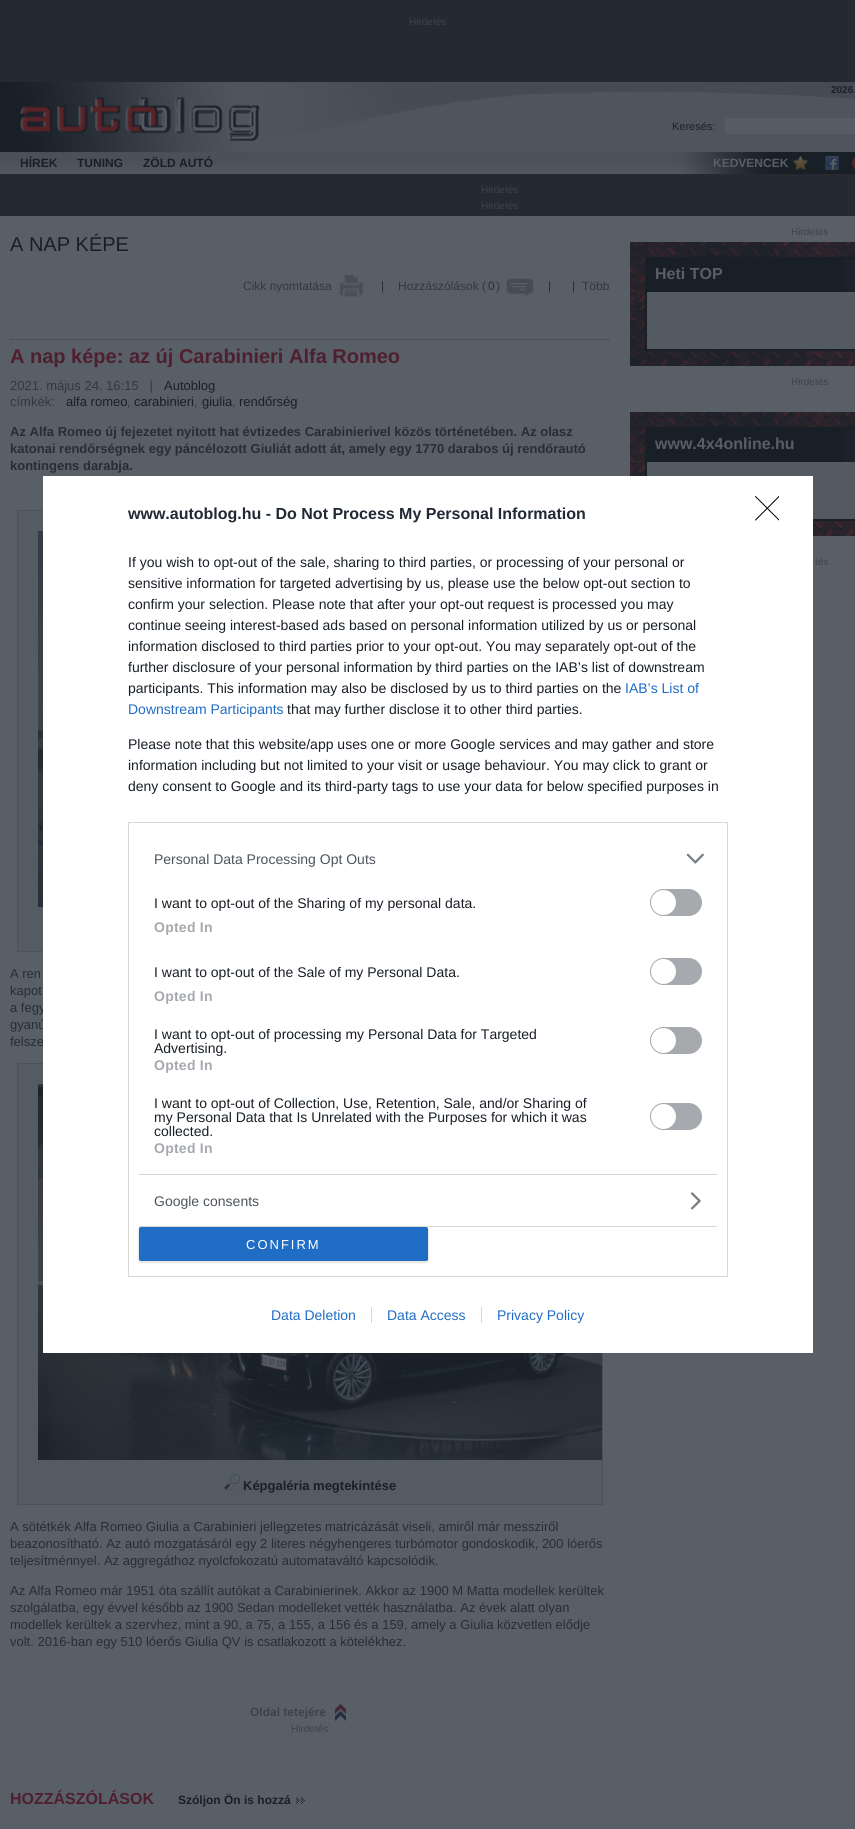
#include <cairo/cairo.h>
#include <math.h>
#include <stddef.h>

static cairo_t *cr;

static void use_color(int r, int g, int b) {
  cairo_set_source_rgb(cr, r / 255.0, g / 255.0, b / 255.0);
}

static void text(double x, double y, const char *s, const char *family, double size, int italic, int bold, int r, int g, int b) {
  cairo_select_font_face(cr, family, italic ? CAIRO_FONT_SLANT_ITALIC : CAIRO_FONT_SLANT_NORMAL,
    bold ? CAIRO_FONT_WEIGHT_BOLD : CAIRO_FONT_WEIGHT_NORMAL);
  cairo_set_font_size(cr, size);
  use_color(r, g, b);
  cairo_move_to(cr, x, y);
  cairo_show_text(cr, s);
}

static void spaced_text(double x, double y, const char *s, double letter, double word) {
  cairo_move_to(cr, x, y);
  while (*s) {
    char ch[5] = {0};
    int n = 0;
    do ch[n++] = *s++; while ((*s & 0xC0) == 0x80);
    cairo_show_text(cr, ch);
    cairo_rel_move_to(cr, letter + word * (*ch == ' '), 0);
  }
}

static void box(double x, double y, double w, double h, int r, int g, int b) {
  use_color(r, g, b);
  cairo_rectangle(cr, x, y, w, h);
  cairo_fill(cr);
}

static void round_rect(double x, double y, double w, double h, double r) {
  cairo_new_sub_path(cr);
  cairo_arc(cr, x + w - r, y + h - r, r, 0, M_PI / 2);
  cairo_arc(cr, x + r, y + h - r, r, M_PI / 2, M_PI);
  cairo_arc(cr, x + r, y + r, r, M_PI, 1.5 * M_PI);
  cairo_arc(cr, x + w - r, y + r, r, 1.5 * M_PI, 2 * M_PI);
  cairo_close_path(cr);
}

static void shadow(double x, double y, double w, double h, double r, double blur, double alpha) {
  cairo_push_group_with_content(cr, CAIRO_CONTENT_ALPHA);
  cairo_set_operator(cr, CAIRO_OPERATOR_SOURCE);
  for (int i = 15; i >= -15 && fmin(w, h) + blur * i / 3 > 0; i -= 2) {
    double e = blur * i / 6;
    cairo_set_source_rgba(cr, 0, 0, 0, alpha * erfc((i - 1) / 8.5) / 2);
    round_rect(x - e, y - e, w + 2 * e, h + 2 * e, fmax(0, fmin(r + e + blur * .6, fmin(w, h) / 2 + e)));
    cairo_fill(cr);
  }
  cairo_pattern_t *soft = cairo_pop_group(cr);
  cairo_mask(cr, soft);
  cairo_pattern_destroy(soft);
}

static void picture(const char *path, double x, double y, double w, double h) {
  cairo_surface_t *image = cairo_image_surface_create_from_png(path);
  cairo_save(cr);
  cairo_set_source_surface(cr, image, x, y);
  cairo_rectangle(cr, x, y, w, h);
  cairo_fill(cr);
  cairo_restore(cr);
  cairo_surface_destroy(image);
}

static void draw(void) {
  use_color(36, 41, 50);
  cairo_paint(cr);
  picture("img_01.png", 0, 82, 855, 92);
  picture("img_02.png", 20, 97, 240, 44);
  box(725, 118, 130, 16, 86, 92, 101);
  picture("img_03.png", 793, 156, 15, 14);
  picture("img_04.png", 825, 156, 14, 14);
  picture("img_05.png", 852, 157, 3, 12);
  box(0, 216, 855, 1613, 89, 95, 103);
  picture("img_06.png", 338, 275, 26, 22);
  picture("img_07.png", 506, 278, 28, 19);
  cairo_new_path(cr);
  cairo_move_to(cr, 10, 339.5);
  cairo_line_to(cr, 610, 339.5);
  use_color(63, 69, 77);
  cairo_set_line_width(cr, 1);
  cairo_set_dash(cr, (double[]){1, 1}, 2, 0);
  cairo_stroke(cr);
  box(18, 511, 25, 440, 85, 91, 99);
  cairo_rectangle(cr, 17.5, 510.5, 585, 441);
  use_color(76, 82, 91);
  cairo_set_dash(cr, NULL, 0, 0);
  cairo_stroke(cr);
  picture("img_08.png", 38, 531, 5, 376);
  use_color(85, 91, 99);
  cairo_rectangle(cr, 17.5, 1063.5, 585, 441);
  cairo_fill_preserve(cr);
  use_color(76, 82, 91);
  cairo_stroke(cr);
  picture("img_09.png", 38, 1084, 564, 376);
  picture("img_10.png", 224, 1474, 16, 16);
  picture("img_11.png", 335, 1704, 11, 17);
  picture("img_12.png", 296, 1797, 9, 7);
  picture("img_13.png", 630, 305, 225, 61);
  picture("img_14.png", 630, 242, 225, 63);
  picture("img_13.png", 630, 475, 225, 61);
  picture("img_14.png", 630, 412, 225, 63);
  text(409, 25, "Hirdetés", "Liberation Sans", 10, 0, 0, 61, 67, 75);
  text(831, 93, "2026.", "Liberation Sans", 10, 0, 1, 25, 31, 39);
  text(672, 130, "Keresés:", "Liberation Sans", 11, 0, 0, 25, 31, 39);
  text(20, 167, "HÍREK", "Liberation Sans", 12, 0, 1, 25, 31, 39);
  text(77, 167, "TUNING", "Liberation Sans", 12, 0, 1, 25, 31, 39);
  text(143, 167, "ZÖLD AUTÓ", "Liberation Sans", 12, 0, 1, 25, 31, 39);
  text(713, 167, "KEDVENCEK", "Liberation Sans", 12, 0, 1, 89, 95, 103);
  text(481, 193, "Hirdetés", "Liberation Sans", 10, 0, 0, 61, 67, 75);
  text(481, 209, "Hirdetés", "Liberation Sans", 10, 0, 0, 61, 67, 75);
  text(10, 251, "A NAP KÉPE", "Liberation Sans", 20, 0, 0, 25, 31, 39);
  text(243, 290, "Cikk nyomtatása", "Liberation Sans", 12, 0, 0, 50, 56, 65);
  text(381, 290, "|", "Liberation Sans", 12, 0, 0, 39, 45, 54);
  text(398, 290, "Hozzászólások (", "Liberation Sans", 12, 0, 0, 50, 56, 65);
  text(488, 290, "0", "Liberation Sans", 12, 0, 0, 35, 46, 65);
  text(496, 290, ")", "Liberation Sans", 12, 0, 0, 50, 56, 65);
  text(548, 290, "|", "Liberation Sans", 12, 0, 0, 39, 45, 54);
  text(572, 290, "|", "Liberation Sans", 12, 0, 0, 35, 46, 65);
  text(582, 290, "Több", "Liberation Sans", 12, 0, 0, 50, 56, 65);
  text(10, 363, "A nap képe: az új Carabinieri Alfa Romeo", "Liberation Sans", 20, 0, 1, 77, 31, 47);
  text(10, 390, "2021. május 24. 16:15   |", "Liberation Sans", 13, 0, 0, 50, 56, 65);
  text(164, 390, "Autoblog", "Liberation Sans", 13, 0, 0, 25, 31, 39);
  text(10, 406, "címkék:", "Liberation Sans", 13, 0, 0, 50, 56, 65);
  text(66, 406, "alfa romeo", "Liberation Sans", 13, 0, 0, 25, 31, 39);
  text(127, 406, ",", "Liberation Sans", 13, 0, 0, 50, 56, 65);
  text(134, 406, "carabinieri", "Liberation Sans", 13, 0, 0, 25, 31, 39);
  text(194, 406, ",", "Liberation Sans", 13, 0, 0, 50, 56, 65);
  text(202, 406, "giulia", "Liberation Sans", 13, 0, 0, 25, 31, 39);
  text(232, 406, ",", "Liberation Sans", 13, 0, 0, 50, 56, 65);
  text(239, 406, "rendőrség", "Liberation Sans", 13, 0, 0, 25, 31, 39);
  text(10, 436, "Az Alfa Romeo új fejezetet nyitott hat évtizedes Carabinierivel közös történetében. Az olasz", "Liberation Sans", 13, 0, 1, 39, 45, 54);
  text(10, 453, "katonai rendőrségnek egy páncélozott Giuliát adott át, amely egy 1770 darabos új rendőrautó", "Liberation Sans", 13, 0, 1, 39, 45, 54);
  text(10, 470, "kontingens darabja.", "Liberation Sans", 13, 0, 1, 39, 45, 54);
  text(10, 978, "A ren", "Liberation Sans", 13, 0, 0, 39, 45, 54);
  text(10, 995, "kapot", "Liberation Sans", 13, 0, 0, 39, 45, 54);
  text(10, 1012, "a fegy", "Liberation Sans", 13, 0, 0, 39, 45, 54);
  text(10, 1029, "gyanú", "Liberation Sans", 13, 0, 0, 39, 45, 54);
  text(10, 1046, "felsze", "Liberation Sans", 13, 0, 0, 39, 45, 54);
  text(243, 1490, "Képgaléria megtekintése", "Liberation Sans", 13, 0, 1, 25, 31, 39);
  text(10, 1531, "A sötétkék Alfa Romeo Giulia a Carabinieri jellegzetes matricázását viseli, amiről már messziről", "Liberation Sans", 13, 0, 0, 39, 45, 54);
  text(10, 1548, "beazonosítható. Az autó mozgatásáról egy 2 literes négyhengeres turbómotor gondoskodik, 200 lóerős", "Liberation Sans", 13, 0, 0, 39, 45, 54);
  text(10, 1565, "teljesítménnyel. Az aggregáthoz nyolcfokozatú automataváltó kapcsolódik.", "Liberation Sans", 13, 0, 0, 39, 45, 54);
  text(10, 1595, "Az Alfa Romeo már 1951 óta szállít autókat a Carabinierinek. Akkor az 1900 M Matta modellek kerültek", "Liberation Sans", 13, 0, 0, 39, 45, 54);
  text(10, 1612, "szolgálatba, egy évvel később az 1900 Sedan modelleket vették használatba. Az évek alatt olyan", "Liberation Sans", 13, 0, 0, 39, 45, 54);
  text(10, 1629, "modellek kerültek a szervhez, mint a 90, a 75, a 155, a 156 és a 159, amely a Giulia közvetlen elődje", "Liberation Sans", 13, 0, 0, 39, 45, 54);
  text(10, 1646, "volt. 2016-ban egy 510 lóerős Giulia QV is csatlakozott a kötelékhez.", "Liberation Sans", 13, 0, 0, 39, 45, 54);
  text(250, 1716, "Oldal tetejére", "Liberation Sans", 12, 0, 1, 61, 67, 75);
  text(291, 1732, "Hirdetés", "Liberation Sans", 10, 0, 0, 61, 67, 75);
  text(10, 1804, "HOZZÁSZÓLÁSOK", "Liberation Sans", 16, 0, 1, 77, 31, 47);
  text(178, 1804, "Szóljon Ön is hozzá", "Liberation Sans", 12, 0, 1, 25, 31, 39);
  text(791, 235, "Hirdetés", "Liberation Sans", 10, 0, 0, 61, 67, 75);
  text(655, 279, "Heti TOP", "Liberation Sans", 16, 0, 1, 89, 95, 103);
  text(791, 385, "Hirdetés", "Liberation Sans", 10, 0, 0, 61, 67, 75);
  text(655, 449, "www.4x4online.hu", "Liberation Sans", 16, 0, 1, 89, 95, 103);
  text(815, 565, "tés", "Liberation Sans", 10, 0, 0, 61, 67, 75);
  box(43, 476, 770, 877, 255, 255, 255);
  text(128, 519, "www.autoblog.hu - Do Not Process My Personal Information", "Liberation Sans", 16, 0, 1, 33, 41, 52);
  text(128, 567, "If you wish to opt-out of the sale, sharing to third parties, or processing of your personal or", "Liberation Sans", 14, 0, 0, 25, 31, 39);
  text(128, 588, "sensitive information for targeted advertising by us, please use the below opt-out section to", "Liberation Sans", 14, 0, 0, 25, 31, 39);
  text(128, 609, "confirm your selection. Please note that after your opt-out request is processed you may", "Liberation Sans", 14, 0, 0, 25, 31, 39);
  text(128, 630, "continue seeing interest-based ads based on personal information utilized by us or personal", "Liberation Sans", 14, 0, 0, 25, 31, 39);
  text(128, 651, "information disclosed to third parties prior to your opt-out. You may separately opt-out of the", "Liberation Sans", 14, 0, 0, 25, 31, 39);
  text(128, 672, "further disclosure of your personal information by third parties on the IAB’s list of downstream", "Liberation Sans", 14, 0, 0, 25, 31, 39);
  text(128, 693, "participants. This information may also be disclosed by us to third parties on the", "Liberation Sans", 14, 0, 0, 25, 31, 39);
  text(625, 693, "IAB’s List of", "Liberation Sans", 14, 0, 0, 32, 109, 197);
  text(128, 714, "Downstream Participants", "Liberation Sans", 14, 0, 0, 32, 109, 197);
  text(287, 714, "that may further disclose it to other third parties.", "Liberation Sans", 14, 0, 0, 25, 31, 39);
  text(128, 749, "Please note that this website/app uses one or more Google services and may gather and store", "Liberation Sans", 14, 0, 0, 25, 31, 39);
  text(128, 770, "information including but not limited to your visit or usage behaviour. You may click to grant or", "Liberation Sans", 14, 0, 0, 25, 31, 39);
  text(128, 791, "deny consent to Google and its third-party tags to use your data for below specified purposes in", "Liberation Sans", 14, 0, 0, 25, 31, 39);
  cairo_rectangle(cr, 128.5, 822.5, 599, 454);
  use_color(216, 216, 216);
  cairo_stroke(cr);
  box(139, 1174, 578, 1, 216, 216, 216);
  text(154, 864, "Personal Data Processing Opt Outs", "Liberation Sans", 14, 0, 0, 77, 84, 93);
  picture("img_15.png", 686, 853, 18, 11);
  text(154, 908, "I want to opt-out of the Sharing of my personal data.", "Liberation Sans", 14, 0, 0, 25, 31, 39);
  use_color(166, 169, 174);
  round_rect(650.5, 889.5, 51, 26, 13);
  cairo_fill_preserve(cr);
  cairo_stroke(cr);
  use_color(255, 255, 255);
  cairo_arc(cr, 663.5, 902.5, 12.5, 0, 2 * M_PI);
  cairo_fill(cr);
  cairo_select_font_face(cr, "Liberation Sans", CAIRO_FONT_SLANT_NORMAL, CAIRO_FONT_WEIGHT_BOLD);
  use_color(166, 169, 174);
  spaced_text(154, 932, "Opted In", 0.25, 0);
  text(154, 977, "I want to opt-out of the Sale of my Personal Data.", "Liberation Sans", 14, 0, 0, 25, 31, 39);
  use_color(166, 169, 174);
  round_rect(650.5, 958.5, 51, 26, 13);
  cairo_fill_preserve(cr);
  cairo_stroke(cr);
  use_color(255, 255, 255);
  cairo_arc(cr, 663.5, 971.5, 12.5, 0, 2 * M_PI);
  cairo_fill(cr);
  cairo_select_font_face(cr, "Liberation Sans", CAIRO_FONT_SLANT_NORMAL, CAIRO_FONT_WEIGHT_BOLD);
  use_color(166, 169, 174);
  spaced_text(154, 1001, "Opted In", 0.25, 0);
  text(154, 1039, "I want to opt-out of processing my Personal Data for Targeted", "Liberation Sans", 14, 0, 0, 25, 31, 39);
  text(154, 1053, "Advertising.", "Liberation Sans", 14, 0, 0, 25, 31, 39);
  use_color(166, 169, 174);
  round_rect(650.5, 1027.5, 51, 26, 13);
  cairo_fill_preserve(cr);
  cairo_stroke(cr);
  use_color(255, 255, 255);
  cairo_arc(cr, 663.5, 1040.5, 12.5, 0, 2 * M_PI);
  cairo_fill(cr);
  cairo_select_font_face(cr, "Liberation Sans", CAIRO_FONT_SLANT_NORMAL, CAIRO_FONT_WEIGHT_BOLD);
  use_color(166, 169, 174);
  spaced_text(154, 1070, "Opted In", 0.25, 0);
  text(154, 1108, "I want to opt-out of Collection, Use, Retention, Sale, and/or Sharing of", "Liberation Sans", 14, 0, 0, 25, 31, 39);
  text(154, 1122, "my Personal Data that Is Unrelated with the Purposes for which it was", "Liberation Sans", 14, 0, 0, 25, 31, 39);
  text(154, 1136, "collected.", "Liberation Sans", 14, 0, 0, 25, 31, 39);
  use_color(166, 169, 174);
  round_rect(650.5, 1103.5, 51, 26, 13);
  cairo_fill_preserve(cr);
  cairo_stroke(cr);
  use_color(255, 255, 255);
  cairo_arc(cr, 663.5, 1116.5, 12.5, 0, 2 * M_PI);
  cairo_fill(cr);
  cairo_select_font_face(cr, "Liberation Sans", CAIRO_FONT_SLANT_NORMAL, CAIRO_FONT_WEIGHT_BOLD);
  use_color(166, 169, 174);
  spaced_text(154, 1153, "Opted In", 0.25, 0);
  box(139, 1226, 578, 1, 216, 216, 216);
  text(154, 1206, "Google consents", "Liberation Sans", 14, 0, 0, 77, 84, 93);
  picture("img_16.png", 690, 1192, 11, 18);
  use_color(0, 0, 0);
  shadow(138, 1227, 291, 36, 3, 0.5, 0.1);
  use_color(32, 109, 197);
  round_rect(139, 1227, 289, 34, 2);
  cairo_fill(cr);
  cairo_set_font_size(cr, 13);
  use_color(255, 255, 255);
  spaced_text(246, 1249, "CONFIRM", 2, 0);
  cairo_save(cr);
  cairo_rectangle(cr, 755, 496, 24, 25);
  cairo_clip(cr);
  cairo_new_path(cr);
  cairo_move_to(cr, 755.5, 496.5);
  cairo_line_to(cr, 779, 520);
  cairo_move_to(cr, 779, 496.5);
  cairo_line_to(cr, 755.5, 520);
  use_color(0, 0, 0);
  cairo_set_line_cap(cr, CAIRO_LINE_CAP_ROUND);
  cairo_set_line_join(cr, CAIRO_LINE_JOIN_ROUND);
  cairo_stroke(cr);
  cairo_restore(cr);
  text(271, 1320, "Data Deletion", "Liberation Sans", 14, 0, 0, 32, 109, 197);
  text(387, 1320, "Data Access", "Liberation Sans", 14, 0, 0, 32, 109, 197);
  box(371, 1307, 1, 16, 216, 216, 216);
  text(497, 1320, "Privacy Policy", "Liberation Sans", 14, 0, 0, 32, 109, 197);
  box(481, 1307, 1, 16, 216, 216, 216);
}

int main(void) {
  cairo_surface_t *surface = cairo_image_surface_create(CAIRO_FORMAT_RGB24, 855, 1829);
  cr = cairo_create(surface);
  cairo_font_options_t *options = cairo_font_options_create();
  cairo_font_options_set_hint_metrics(options, CAIRO_HINT_METRICS_OFF);
  cairo_font_options_set_hint_style(options, CAIRO_HINT_STYLE_NONE);
  cairo_set_font_options(cr, options);
  cairo_set_miter_limit(cr, 4);
  draw();
  cairo_surface_write_to_png(surface, "out.png");
  cairo_font_options_destroy(options);
  cairo_destroy(cr);
  cairo_surface_destroy(surface);
  return 0;
}
